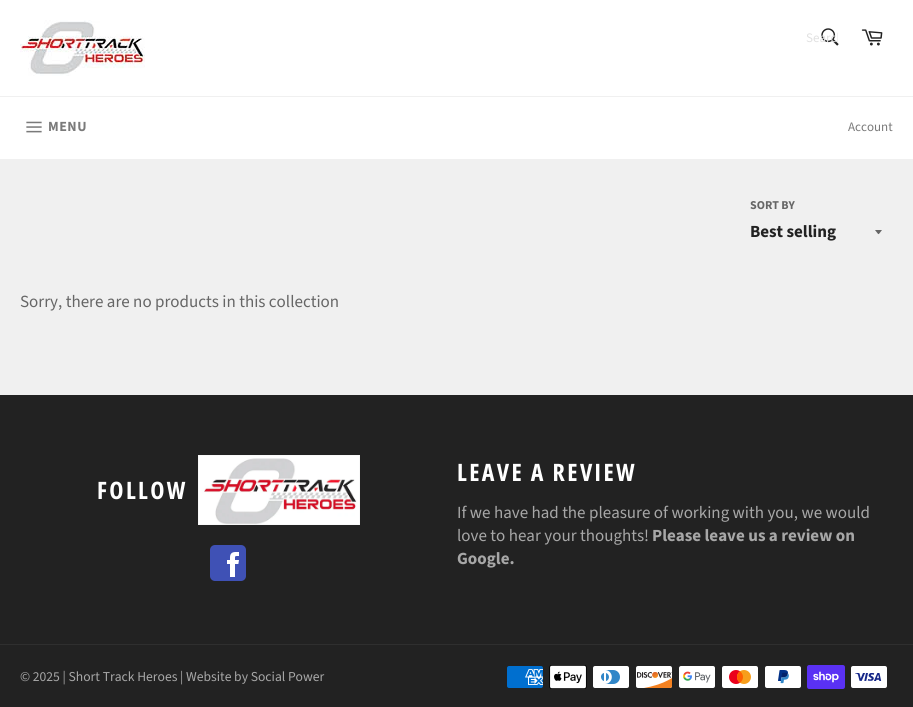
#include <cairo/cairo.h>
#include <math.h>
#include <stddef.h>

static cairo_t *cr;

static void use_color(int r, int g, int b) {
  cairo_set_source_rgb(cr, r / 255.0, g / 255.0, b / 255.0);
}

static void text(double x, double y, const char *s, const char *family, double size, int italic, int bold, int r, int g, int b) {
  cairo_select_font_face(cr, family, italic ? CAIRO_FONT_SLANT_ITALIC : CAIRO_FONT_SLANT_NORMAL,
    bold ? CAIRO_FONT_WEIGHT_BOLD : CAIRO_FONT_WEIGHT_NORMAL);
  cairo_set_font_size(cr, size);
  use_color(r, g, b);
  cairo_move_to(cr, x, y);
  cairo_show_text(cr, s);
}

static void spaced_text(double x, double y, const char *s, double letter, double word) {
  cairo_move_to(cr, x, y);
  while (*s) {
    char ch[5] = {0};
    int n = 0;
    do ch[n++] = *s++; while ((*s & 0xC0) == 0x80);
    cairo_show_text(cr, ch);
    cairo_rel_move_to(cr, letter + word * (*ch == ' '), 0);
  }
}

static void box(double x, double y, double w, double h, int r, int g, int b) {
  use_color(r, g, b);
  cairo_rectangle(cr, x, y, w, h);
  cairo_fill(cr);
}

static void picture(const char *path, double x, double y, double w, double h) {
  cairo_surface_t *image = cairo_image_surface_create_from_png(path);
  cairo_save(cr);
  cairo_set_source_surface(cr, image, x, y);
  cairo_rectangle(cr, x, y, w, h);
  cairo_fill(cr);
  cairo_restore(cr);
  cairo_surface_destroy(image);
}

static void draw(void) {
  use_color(240, 240, 240);
  cairo_paint(cr);
  box(0, 0, 913, 96, 255, 255, 255);
  picture("img_01.png", 20, 20, 125, 56);
  picture("img_02.png", 821, 28, 18, 18);
  picture("img_03.png", 861, 29, 22, 17);
  box(0, 97, 913, 62, 255, 255, 255);
  picture("img_04.png", 26, 121, 16, 12);
  use_color(102, 102, 102);
  cairo_new_path(cr);
  cairo_move_to(cr, 875, 230);
  cairo_curve_to(cr, 879.5, 235.5, 877.5, 235.5, 882, 230);
  cairo_close_path(cr);
  cairo_fill(cr);
  box(0, 395, 913, 312, 34, 34, 34);
  picture("img_05.png", 198, 455, 162, 70);
  picture("img_06.png", 210, 545, 36, 36);
  box(0, 644, 913, 1, 47, 47, 47);
  picture("img_07.png", 507, 666, 36, 22);
  picture("img_08.png", 549, 665, 38, 24);
  picture("img_09.png", 593, 666, 36, 22);
  picture("img_10.png", 636, 666, 36, 22);
  picture("img_11.png", 679, 666, 36, 22);
  picture("img_12.png", 722, 666, 36, 22);
  picture("img_13.png", 765, 666, 36, 22);
  picture("img_14.png", 807, 665, 38, 24);
  picture("img_15.png", 851, 666, 36, 22);
  cairo_save(cr);
  cairo_rectangle(cr, 806, 29, 32, 18);
  cairo_clip(cr);
  text(806, 42, "Search", "Source Sans Pro", 13, 0, 0, 225, 225, 225);
  cairo_restore(cr);
  cairo_select_font_face(cr, "Source Sans Pro", CAIRO_FONT_SLANT_NORMAL, CAIRO_FONT_WEIGHT_BOLD);
  cairo_set_font_size(cr, 14);
  use_color(122, 122, 122);
  spaced_text(48, 131, "MENU", 0.5, 0);
  text(848, 131, "Account", "Source Sans Pro", 13, 0, 0, 122, 122, 122);
  text(750, 209, "SORT BY", "Source Sans Pro", 12, 0, 1, 102, 102, 102);
  text(750, 237, "Best selling", "Source Sans Pro", 17, 0, 1, 34, 34, 34);
  text(20, 307, "Sorry, there are no products in this collection", "Source Sans Pro", 17, 0, 0, 102, 102, 102);
  cairo_select_font_face(cr, "Open Sans Condensed", CAIRO_FONT_SLANT_NORMAL, CAIRO_FONT_WEIGHT_BOLD);
  cairo_set_font_size(cr, 24);
  use_color(255, 255, 255);
  spaced_text(97, 499, "FOLLOW", 2.4, 0);
  spaced_text(457, 481, "LEAVE A REVIEW", 2.4, 0);
  text(457, 518, "If we have had the pleasure of working with you, we would", "Source Sans Pro", 17, 0, 0, 167, 167, 167);
  text(457, 541, "love to hear your thoughts!", "Source Sans Pro", 17, 0, 0, 167, 167, 167);
  text(652, 541, "Please leave us a review on", "Source Sans Pro", 17, 0, 1, 167, 167, 167);
  text(457, 564, "Google.", "Source Sans Pro", 17, 0, 1, 167, 167, 167);
  text(20, 681, "© 2025 | Short Track Heroes | Website by Social Power", "Source Sans Pro", 13.6, 0, 0, 167, 167, 167);
}

int main(void) {
  cairo_surface_t *surface = cairo_image_surface_create(CAIRO_FORMAT_RGB24, 913, 707);
  cr = cairo_create(surface);
  cairo_font_options_t *options = cairo_font_options_create();
  cairo_font_options_set_hint_metrics(options, CAIRO_HINT_METRICS_OFF);
  cairo_font_options_set_hint_style(options, CAIRO_HINT_STYLE_NONE);
  cairo_set_font_options(cr, options);
  cairo_set_miter_limit(cr, 4);
  draw();
  cairo_surface_write_to_png(surface, "out.png");
  cairo_font_options_destroy(options);
  cairo_destroy(cr);
  cairo_surface_destroy(surface);
  return 0;
}
